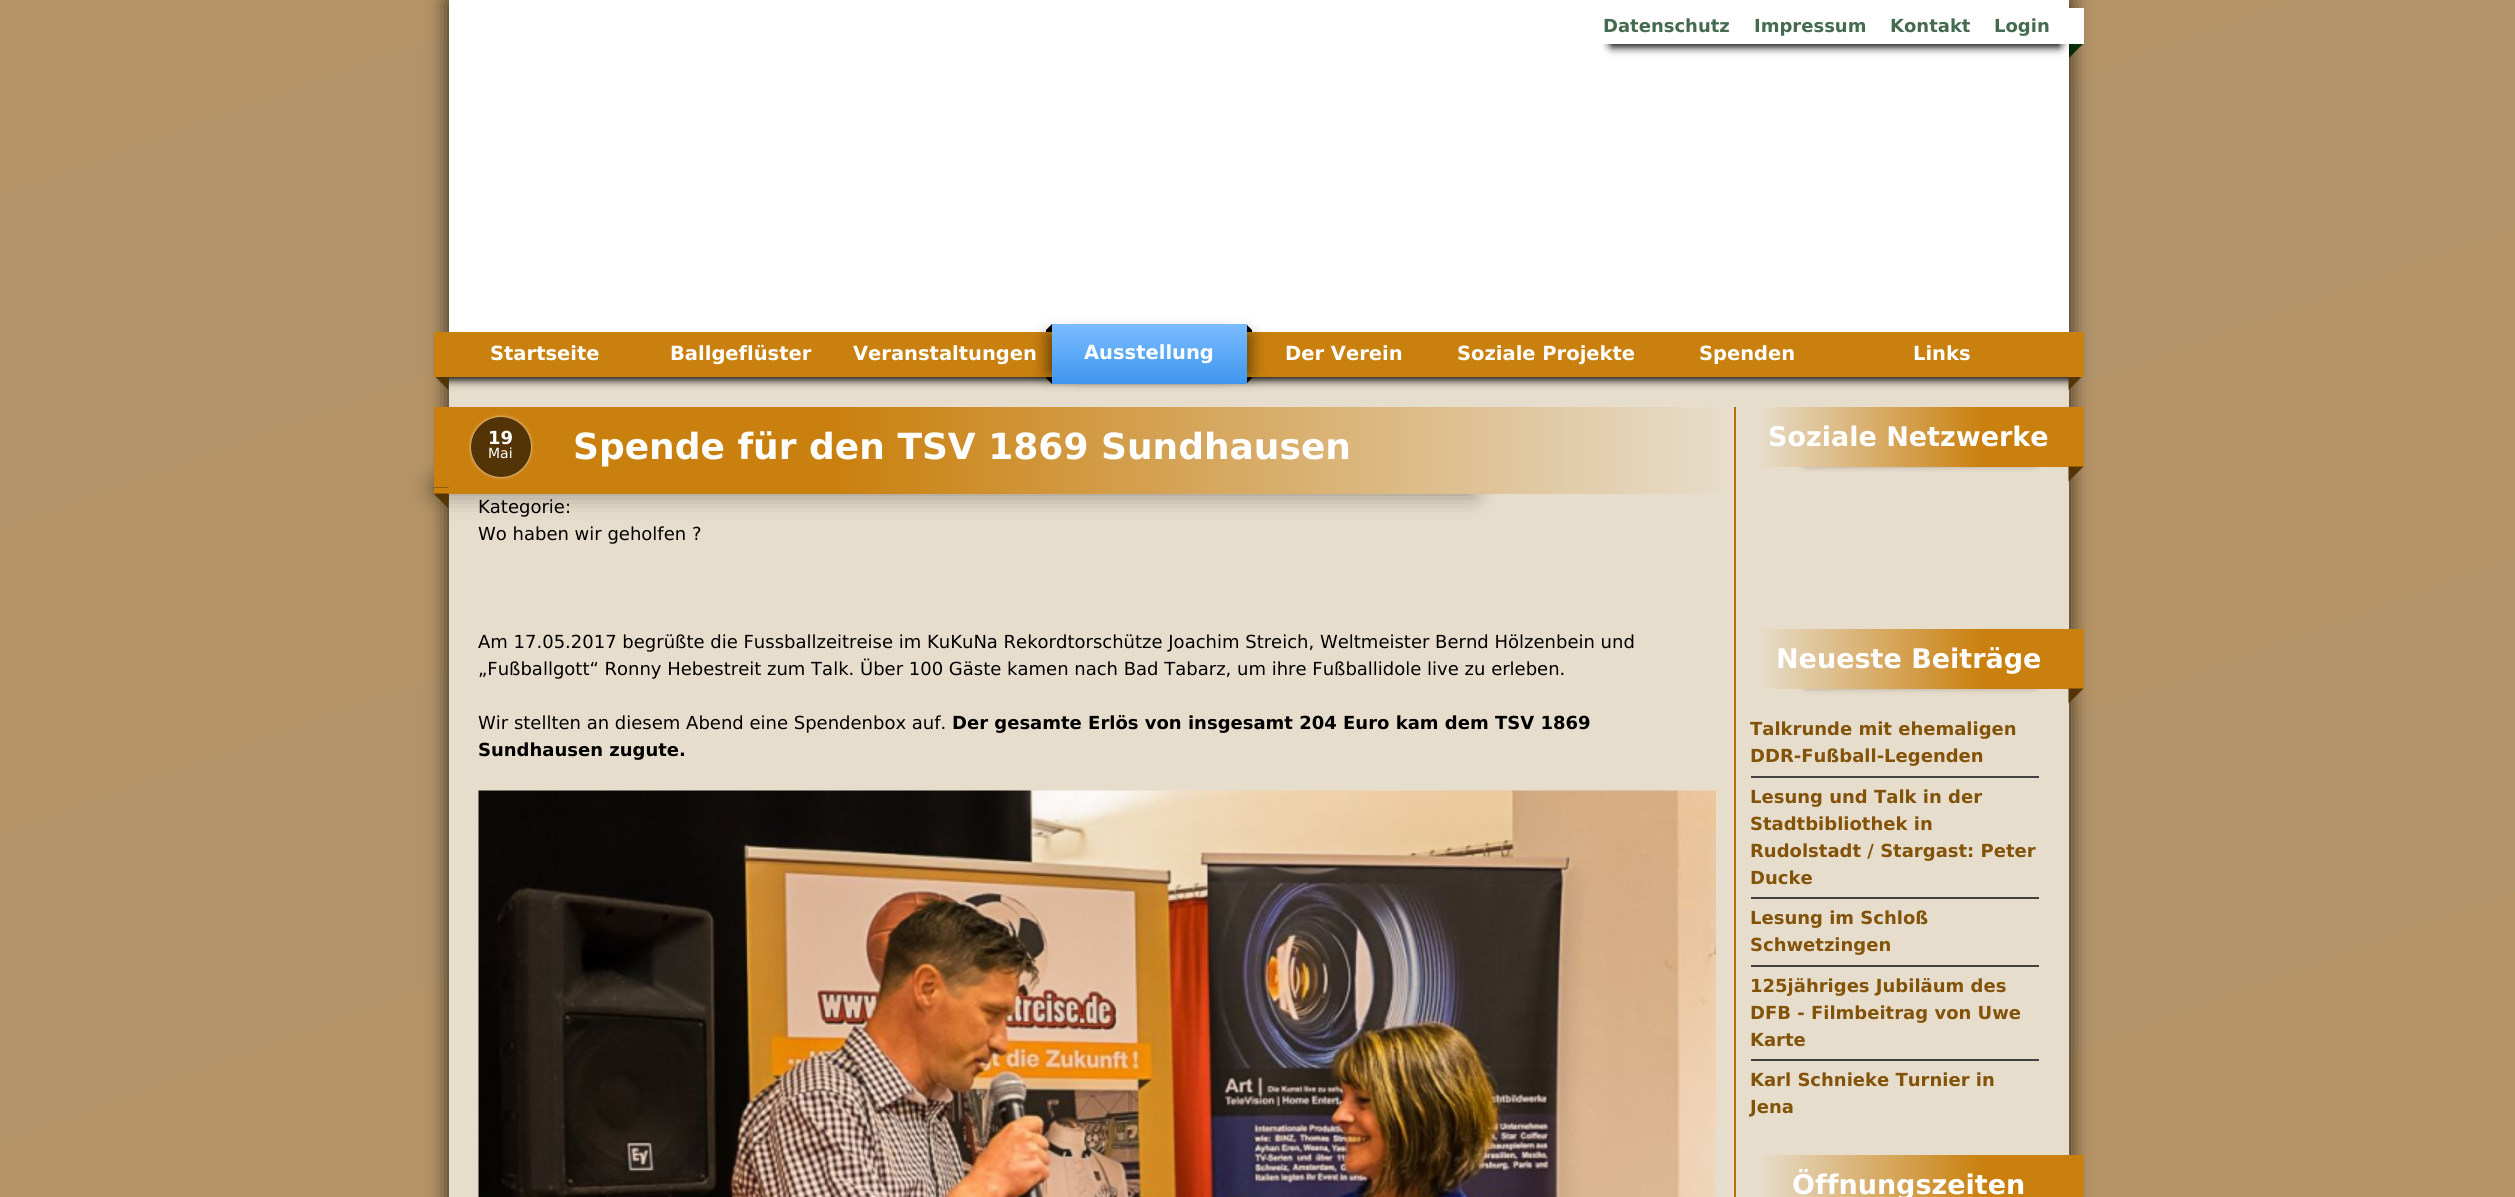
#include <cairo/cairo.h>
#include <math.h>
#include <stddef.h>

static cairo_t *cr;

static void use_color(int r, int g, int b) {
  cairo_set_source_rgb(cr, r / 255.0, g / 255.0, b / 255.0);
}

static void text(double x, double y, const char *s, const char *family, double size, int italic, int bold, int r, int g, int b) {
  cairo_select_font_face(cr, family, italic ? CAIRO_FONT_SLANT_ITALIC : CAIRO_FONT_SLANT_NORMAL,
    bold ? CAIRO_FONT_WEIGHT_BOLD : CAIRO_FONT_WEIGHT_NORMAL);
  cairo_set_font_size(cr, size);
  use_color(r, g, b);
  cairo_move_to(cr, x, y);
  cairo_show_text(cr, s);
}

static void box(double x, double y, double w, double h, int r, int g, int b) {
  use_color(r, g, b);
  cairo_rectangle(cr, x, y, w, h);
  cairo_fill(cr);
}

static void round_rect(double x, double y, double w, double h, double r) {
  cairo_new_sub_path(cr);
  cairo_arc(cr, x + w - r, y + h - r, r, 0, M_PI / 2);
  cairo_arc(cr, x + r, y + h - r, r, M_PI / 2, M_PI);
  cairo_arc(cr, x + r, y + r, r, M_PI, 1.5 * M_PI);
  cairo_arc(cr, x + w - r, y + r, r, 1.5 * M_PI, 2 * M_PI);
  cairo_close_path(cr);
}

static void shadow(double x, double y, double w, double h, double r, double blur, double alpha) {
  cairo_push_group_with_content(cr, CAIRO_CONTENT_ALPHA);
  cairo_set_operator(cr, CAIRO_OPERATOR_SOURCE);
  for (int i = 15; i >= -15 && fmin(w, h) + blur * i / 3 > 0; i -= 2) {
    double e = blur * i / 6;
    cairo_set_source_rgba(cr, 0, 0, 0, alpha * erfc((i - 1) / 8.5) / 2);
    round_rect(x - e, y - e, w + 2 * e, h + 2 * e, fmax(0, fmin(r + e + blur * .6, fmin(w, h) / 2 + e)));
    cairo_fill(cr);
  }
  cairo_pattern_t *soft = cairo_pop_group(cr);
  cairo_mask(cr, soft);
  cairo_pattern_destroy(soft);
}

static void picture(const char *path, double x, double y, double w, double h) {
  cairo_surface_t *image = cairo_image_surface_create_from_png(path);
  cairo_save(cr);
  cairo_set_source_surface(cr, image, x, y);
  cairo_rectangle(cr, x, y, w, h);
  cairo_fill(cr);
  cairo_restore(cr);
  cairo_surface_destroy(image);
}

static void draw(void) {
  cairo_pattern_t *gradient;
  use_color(255, 255, 255);
  cairo_paint(cr);
  gradient = cairo_pattern_create_linear(1597, 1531, 776, -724);
  cairo_pattern_add_color_stop_rgba(gradient, 0, 0.71, 0.58, 0.404, 1);
  cairo_pattern_add_color_stop_rgba(gradient, 0.12, 0.71, 0.58, 0.404, 1);
  cairo_pattern_add_color_stop_rgba(gradient, 0.12, 0.698, 0.58, 0.416, 1);
  cairo_pattern_add_color_stop_rgba(gradient, 0.25, 0.698, 0.58, 0.416, 1);
  cairo_pattern_add_color_stop_rgba(gradient, 0.25, 0.71, 0.58, 0.404, 1);
  cairo_pattern_add_color_stop_rgba(gradient, 0.38, 0.71, 0.58, 0.404, 1);
  cairo_pattern_add_color_stop_rgba(gradient, 0.38, 0.698, 0.58, 0.416, 1);
  cairo_pattern_add_color_stop_rgba(gradient, 0.5, 0.698, 0.58, 0.416, 1);
  cairo_pattern_add_color_stop_rgba(gradient, 0.5, 0.71, 0.58, 0.404, 1);
  cairo_pattern_add_color_stop_rgba(gradient, 0.62, 0.71, 0.58, 0.404, 1);
  cairo_pattern_add_color_stop_rgba(gradient, 0.62, 0.698, 0.58, 0.416, 1);
  cairo_pattern_add_color_stop_rgba(gradient, 0.75, 0.698, 0.58, 0.416, 1);
  cairo_pattern_add_color_stop_rgba(gradient, 0.75, 0.71, 0.58, 0.404, 1);
  cairo_pattern_add_color_stop_rgba(gradient, 0.88, 0.71, 0.58, 0.404, 1);
  cairo_pattern_add_color_stop_rgba(gradient, 0.88, 0.698, 0.58, 0.416, 1);
  cairo_pattern_add_color_stop_rgba(gradient, 1, 0.698, 0.58, 0.416, 1);
  cairo_set_source(cr, gradient);
  cairo_pattern_destroy(gradient);
  cairo_rectangle(cr, 0, 0, 2515, 1197);
  cairo_fill(cr);
  use_color(11, 61, 12);
  cairo_new_path(cr);
  cairo_move_to(cr, 2068.5, 43.5);
  cairo_line_to(cr, 2083.5, 43.5);
  cairo_line_to(cr, 2068.5, 58.5);
  cairo_close_path(cr);
  cairo_fill(cr);
  use_color(0, 0, 0);
  shadow(449, 0, 1620, 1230, 0, 11, 0.8);
  box(449, 377, 1620, 820, 231, 221, 204);
  box(449, 0, 1620, 332, 255, 255, 255);
  use_color(0, 0, 0);
  shadow(1610, 38, 451, 9, 4.5, 4.5, 1);
  box(1601, 8, 483, 36, 255, 255, 255);
  use_color(0, 0, 0);
  shadow(446, 371, 1626, 9, 4.5, 4.5, 1);
  use_color(83, 52, 6);
  cairo_new_path(cr);
  cairo_move_to(cr, 433.5, 375);
  cairo_line_to(cr, 448.5, 375);
  cairo_line_to(cr, 448.5, 390);
  cairo_close_path(cr);
  cairo_fill(cr);
  cairo_new_path(cr);
  cairo_move_to(cr, 2068.5, 375);
  cairo_line_to(cr, 2083.5, 375);
  cairo_line_to(cr, 2068.5, 390);
  cairo_close_path(cr);
  cairo_fill(cr);
  box(434, 332, 1650, 45, 202, 128, 14);
  use_color(0, 0, 0);
  cairo_new_path(cr);
  cairo_move_to(cr, 1052, 324);
  cairo_line_to(cr, 1052, 384);
  cairo_line_to(cr, 1046, 378);
  cairo_line_to(cr, 1046, 330);
  cairo_close_path(cr);
  cairo_fill(cr);
  cairo_new_path(cr);
  cairo_move_to(cr, 1246, 384);
  cairo_line_to(cr, 1246, 324);
  cairo_line_to(cr, 1252, 330);
  cairo_line_to(cr, 1252, 378);
  cairo_close_path(cr);
  cairo_fill(cr);
  box(1046, 332, 206, 45, 202, 128, 14);
  use_color(0, 0, 0);
  shadow(1047, 335, 174, 39, 0, 7.5, 0.5);
  shadow(1077, 335, 174, 39, 0, 7.5, 0.5);
  gradient = cairo_pattern_create_linear(1149, 324, 1149, 384);
  cairo_pattern_add_color_stop_rgba(gradient, 0, 0.478, 0.737, 1, 1);
  cairo_pattern_add_color_stop_rgba(gradient, 0.44, 0.376, 0.671, 0.973, 1);
  cairo_pattern_add_color_stop_rgba(gradient, 1, 0.251, 0.588, 0.933, 1);
  cairo_set_source(cr, gradient);
  cairo_pattern_destroy(gradient);
  cairo_rectangle(cr, 1052, 324, 195, 60);
  cairo_fill(cr);
  box(1734, 407, 2, 790, 178, 113, 12);
  use_color(0, 0, 0);
  shadow(434, 482, 1039, 12, 6, 12, 0.4);
  gradient = cairo_pattern_create_linear(434, 447, 1734, 447);
  cairo_pattern_add_color_stop_rgba(gradient, 0, 0.792, 0.502, 0.055, 1);
  cairo_pattern_add_color_stop_rgba(gradient, 0.31, 0.792, 0.502, 0.055, 1);
  cairo_pattern_add_color_stop_rgba(gradient, 1, 0.906, 0.867, 0.8, 1);
  cairo_set_source(cr, gradient);
  cairo_pattern_destroy(gradient);
  cairo_rectangle(cr, 434, 407, 1288, 81);
  cairo_fill(cr);
  use_color(255, 255, 255);
  shadow(471, 417, 60, 60, 30, 1.5, 0.8);
  use_color(83, 52, 6);
  cairo_arc(cr, 501, 447, 30, 0, 2 * M_PI);
  cairo_fill(cr);
  cairo_new_path(cr);
  cairo_move_to(cr, 433.5, 487.5);
  cairo_line_to(cr, 448.5, 487.5);
  cairo_line_to(cr, 448.5, 502.5);
  cairo_close_path(cr);
  cairo_fill(cr);
  gradient = cairo_pattern_create_linear(434, 491, 1734, 491);
  cairo_pattern_add_color_stop_rgba(gradient, 0, 0.792, 0.502, 0.055, 1);
  cairo_pattern_add_color_stop_rgba(gradient, 0.31, 0.792, 0.502, 0.055, 1);
  cairo_pattern_add_color_stop_rgba(gradient, 1, 0.906, 0.867, 0.8, 1);
  cairo_set_source(cr, gradient);
  cairo_pattern_destroy(gradient);
  cairo_rectangle(cr, 434, 488, 1288, 6);
  cairo_fill(cr);
  use_color(83, 52, 6);
  cairo_new_path(cr);
  cairo_move_to(cr, 433.5, 493.5);
  cairo_line_to(cr, 448.5, 493.5);
  cairo_line_to(cr, 448.5, 508.5);
  cairo_close_path(cr);
  cairo_fill(cr);
  picture("img_01.png", 478, 790, 1238, 407);
  use_color(0, 0, 0);
  shadow(1803, 450, 234, 12, 6, 4.5, 1);
  gradient = cairo_pattern_create_linear(1758, 437, 2084, 437);
  cairo_pattern_add_color_stop_rgba(gradient, 0, 0.906, 0.867, 0.8, 1);
  cairo_pattern_add_color_stop_rgba(gradient, 0.69, 0.792, 0.502, 0.055, 1);
  cairo_pattern_add_color_stop_rgba(gradient, 1, 0.792, 0.502, 0.055, 1);
  cairo_set_source(cr, gradient);
  cairo_pattern_destroy(gradient);
  cairo_rectangle(cr, 1761, 407, 323, 60);
  cairo_fill(cr);
  use_color(83, 52, 6);
  cairo_new_path(cr);
  cairo_move_to(cr, 2068.5, 466.5);
  cairo_line_to(cr, 2083.5, 466.5);
  cairo_line_to(cr, 2068.5, 481.5);
  cairo_close_path(cr);
  cairo_fill(cr);
  use_color(0, 0, 0);
  shadow(1803, 672, 234, 12, 6, 4.5, 1);
  gradient = cairo_pattern_create_linear(1758, 659, 2084, 659);
  cairo_pattern_add_color_stop_rgba(gradient, 0, 0.906, 0.867, 0.8, 1);
  cairo_pattern_add_color_stop_rgba(gradient, 0.69, 0.792, 0.502, 0.055, 1);
  cairo_pattern_add_color_stop_rgba(gradient, 1, 0.792, 0.502, 0.055, 1);
  cairo_set_source(cr, gradient);
  cairo_pattern_destroy(gradient);
  cairo_rectangle(cr, 1761, 629, 323, 60);
  cairo_fill(cr);
  use_color(83, 52, 6);
  cairo_new_path(cr);
  cairo_move_to(cr, 2068.5, 688.5);
  cairo_line_to(cr, 2083.5, 688.5);
  cairo_line_to(cr, 2068.5, 703.5);
  cairo_close_path(cr);
  cairo_fill(cr);
  box(1751, 776, 288, 2, 66, 66, 66);
  box(1751, 897, 288, 2, 66, 66, 66);
  box(1751, 965, 288, 2, 66, 66, 66);
  box(1751, 1059, 288, 2, 66, 66, 66);
  gradient = cairo_pattern_create_linear(1758, 1185, 2084, 1185);
  cairo_pattern_add_color_stop_rgba(gradient, 0, 0.906, 0.867, 0.8, 1);
  cairo_pattern_add_color_stop_rgba(gradient, 0.69, 0.792, 0.502, 0.055, 1);
  cairo_pattern_add_color_stop_rgba(gradient, 1, 0.792, 0.502, 0.055, 1);
  cairo_set_source(cr, gradient);
  cairo_pattern_destroy(gradient);
  cairo_rectangle(cr, 1761, 1155, 323, 42);
  cairo_fill(cr);
  text(1603, 32, "Datenschutz", "DejaVu Sans", 18, 0, 1, 69, 107, 79);
  text(1754, 32, "Impressum", "DejaVu Sans", 18, 0, 1, 69, 107, 79);
  text(1890, 32, "Kontakt", "DejaVu Sans", 18, 0, 1, 69, 107, 79);
  text(1994, 32, "Login", "DejaVu Sans", 18, 0, 1, 69, 107, 79);
  text(490, 360, "Startseite", "DejaVu Sans", 19.5, 0, 1, 255, 255, 255);
  text(670, 360, "Ballgeflüster", "DejaVu Sans", 19.5, 0, 1, 255, 255, 255);
  text(853, 360, "Veranstaltungen", "DejaVu Sans", 19.5, 0, 1, 255, 255, 255);
  text(1084, 359, "Ausstellung", "DejaVu Sans", 19.5, 0, 1, 255, 255, 255);
  text(1285, 360, "Der Verein", "DejaVu Sans", 19.5, 0, 1, 255, 255, 255);
  text(1457, 360, "Soziale Projekte", "DejaVu Sans", 19.5, 0, 1, 255, 255, 255);
  text(1699, 360, "Spenden", "DejaVu Sans", 19.5, 0, 1, 255, 255, 255);
  text(1913, 360, "Links", "DejaVu Sans", 19.5, 0, 1, 255, 255, 255);
  text(488, 444, "19", "DejaVu Sans", 18, 0, 1, 255, 255, 255);
  text(488, 458, "Mai", "DejaVu Sans", 14, 0, 0, 255, 255, 255);
  text(573, 459, "Spende für den TSV 1869 Sundhausen", "DejaVu Sans", 36, 0, 1, 255, 255, 255);
  text(478, 513, "Kategorie:", "DejaVu Sans", 18, 0, 0, 0, 0, 0);
  text(478, 540, "Wo haben wir geholfen ?", "DejaVu Sans", 18, 0, 0, 0, 0, 0);
  text(478, 648, "Am 17.05.2017 begrüßte die Fussballzeitreise im KuKuNa Rekordtorschütze Joachim Streich, Weltmeister Bernd Hölzenbein und", "DejaVu Sans", 18, 0, 0, 0, 0, 0);
  text(478, 675, "„Fußballgott“ Ronny Hebestreit zum Talk. Über 100 Gäste kamen nach Bad Tabarz, um ihre Fußballidole live zu erleben.", "DejaVu Sans", 18, 0, 0, 0, 0, 0);
  text(478, 729, "Wir stellten an diesem Abend eine Spendenbox auf.", "DejaVu Sans", 18, 0, 0, 0, 0, 0);
  text(952, 729, "Der gesamte Erlös von insgesamt 204 Euro kam dem TSV 1869", "DejaVu Sans", 18, 0, 1, 0, 0, 0);
  text(478, 756, "Sundhausen zugute.", "DejaVu Sans", 18, 0, 1, 0, 0, 0);
  text(1768, 446, "Soziale Netzwerke", "DejaVu Sans", 27, 0, 1, 255, 255, 255);
  text(1776, 668, "Neueste Beiträge", "DejaVu Sans", 27, 0, 1, 255, 255, 255);
  text(1750, 735, "Talkrunde mit ehemaligen", "DejaVu Sans", 18, 0, 1, 130, 83, 9);
  text(1750, 762, "DDR-Fußball-Legenden", "DejaVu Sans", 18, 0, 1, 130, 83, 9);
  text(1750, 803, "Lesung und Talk in der", "DejaVu Sans", 18, 0, 1, 130, 83, 9);
  text(1750, 830, "Stadtbibliothek in", "DejaVu Sans", 18, 0, 1, 130, 83, 9);
  text(1750, 857, "Rudolstadt / Stargast: Peter", "DejaVu Sans", 18, 0, 1, 130, 83, 9);
  text(1750, 884, "Ducke", "DejaVu Sans", 18, 0, 1, 130, 83, 9);
  text(1750, 924, "Lesung im Schloß", "DejaVu Sans", 18, 0, 1, 130, 83, 9);
  text(1750, 951, "Schwetzingen", "DejaVu Sans", 18, 0, 1, 130, 83, 9);
  text(1750, 992, "125jähriges Jubiläum des", "DejaVu Sans", 18, 0, 1, 130, 83, 9);
  text(1750, 1019, "DFB - Filmbeitrag von Uwe", "DejaVu Sans", 18, 0, 1, 130, 83, 9);
  text(1750, 1046, "Karte", "DejaVu Sans", 18, 0, 1, 130, 83, 9);
  text(1750, 1086, "Karl Schnieke Turnier in", "DejaVu Sans", 18, 0, 1, 130, 83, 9);
  text(1750, 1113, "Jena", "DejaVu Sans", 18, 0, 1, 130, 83, 9);
  text(1792, 1194, "Öffnungszeiten", "DejaVu Sans", 27, 0, 1, 255, 255, 255);
}

int main(void) {
  cairo_surface_t *surface = cairo_image_surface_create(CAIRO_FORMAT_RGB24, 2515, 1197);
  cr = cairo_create(surface);
  cairo_font_options_t *options = cairo_font_options_create();
  cairo_font_options_set_hint_metrics(options, CAIRO_HINT_METRICS_OFF);
  cairo_font_options_set_hint_style(options, CAIRO_HINT_STYLE_NONE);
  cairo_set_font_options(cr, options);
  cairo_set_miter_limit(cr, 4);
  draw();
  cairo_surface_write_to_png(surface, "out.png");
  cairo_font_options_destroy(options);
  cairo_destroy(cr);
  cairo_surface_destroy(surface);
  return 0;
}
